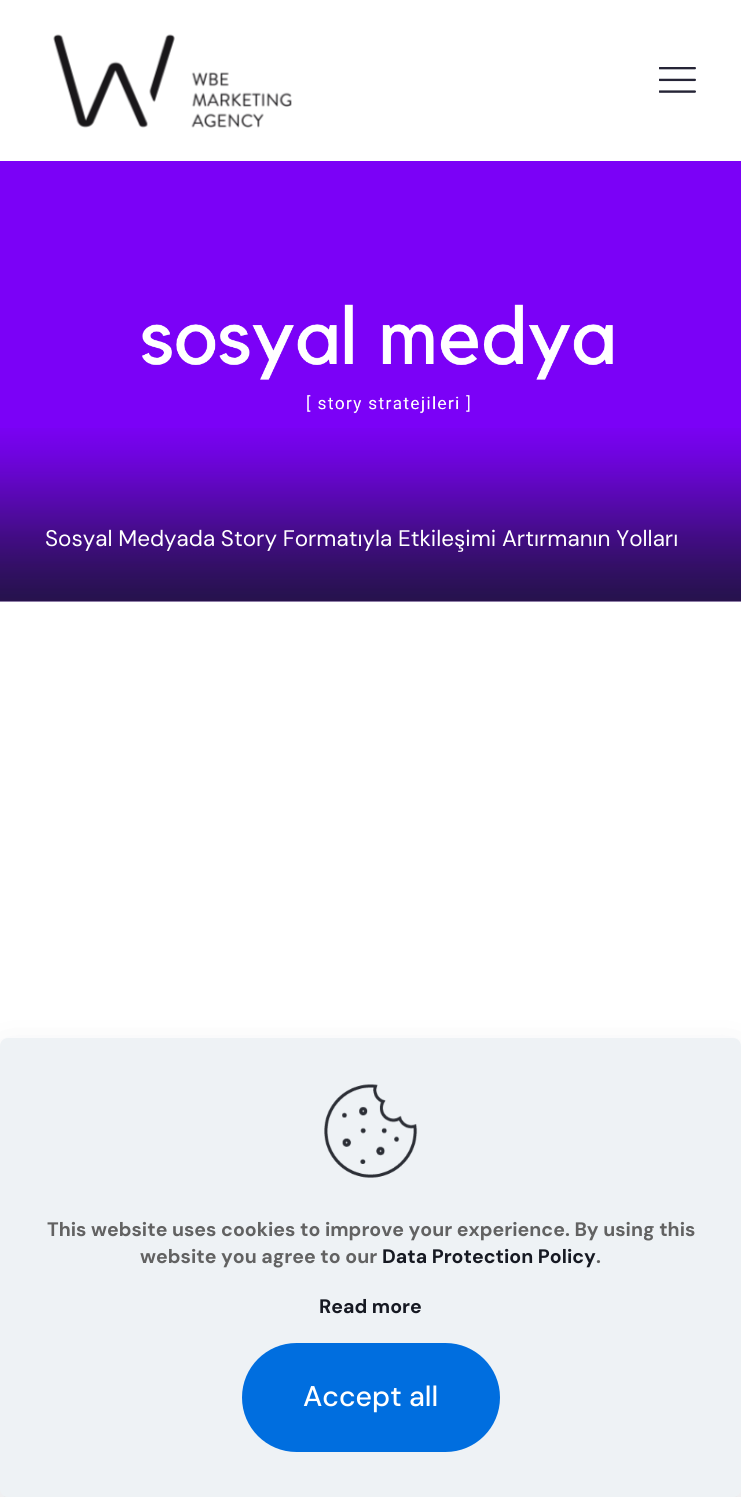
#include <cairo/cairo.h>
#include <math.h>
#include <stddef.h>

static cairo_t *cr;

static void use_color(int r, int g, int b) {
  cairo_set_source_rgb(cr, r / 255.0, g / 255.0, b / 255.0);
}

static void text(double x, double y, const char *s, const char *family, double size, int italic, int bold, int r, int g, int b) {
  cairo_select_font_face(cr, family, italic ? CAIRO_FONT_SLANT_ITALIC : CAIRO_FONT_SLANT_NORMAL,
    bold ? CAIRO_FONT_WEIGHT_BOLD : CAIRO_FONT_WEIGHT_NORMAL);
  cairo_set_font_size(cr, size);
  use_color(r, g, b);
  cairo_move_to(cr, x, y);
  cairo_show_text(cr, s);
}

static void spaced_text(double x, double y, const char *s, double letter, double word) {
  cairo_move_to(cr, x, y);
  while (*s) {
    char ch[5] = {0};
    int n = 0;
    do ch[n++] = *s++; while ((*s & 0xC0) == 0x80);
    cairo_show_text(cr, ch);
    cairo_rel_move_to(cr, letter + word * (*ch == ' '), 0);
  }
}

static void round_rect(double x, double y, double w, double h, double r) {
  cairo_new_sub_path(cr);
  cairo_arc(cr, x + w - r, y + h - r, r, 0, M_PI / 2);
  cairo_arc(cr, x + r, y + h - r, r, M_PI / 2, M_PI);
  cairo_arc(cr, x + r, y + r, r, M_PI, 1.5 * M_PI);
  cairo_arc(cr, x + w - r, y + r, r, 1.5 * M_PI, 2 * M_PI);
  cairo_close_path(cr);
}

static void shadow(double x, double y, double w, double h, double r, double blur, double alpha) {
  cairo_push_group_with_content(cr, CAIRO_CONTENT_ALPHA);
  cairo_set_operator(cr, CAIRO_OPERATOR_SOURCE);
  for (int i = 15; i >= -15 && fmin(w, h) + blur * i / 3 > 0; i -= 2) {
    double e = blur * i / 6;
    cairo_set_source_rgba(cr, 0, 0, 0, alpha * erfc((i - 1) / 8.5) / 2);
    round_rect(x - e, y - e, w + 2 * e, h + 2 * e, fmax(0, fmin(r + e + blur * .6, fmin(w, h) / 2 + e)));
    cairo_fill(cr);
  }
  cairo_pattern_t *soft = cairo_pop_group(cr);
  cairo_mask(cr, soft);
  cairo_pattern_destroy(soft);
}

static void picture(const char *path, double x, double y, double w, double h) {
  cairo_surface_t *image = cairo_image_surface_create_from_png(path);
  cairo_save(cr);
  cairo_set_source_surface(cr, image, x, y);
  cairo_rectangle(cr, x, y, w, h);
  cairo_fill(cr);
  cairo_restore(cr);
  cairo_surface_destroy(image);
}

static void draw(void) {
  use_color(255, 255, 255);
  cairo_paint(cr);
  picture("img_01.png", 53, 34, 239, 94);
  picture("img_02.png", 659, 67, 37, 26);
  picture("img_03.png", 0, 161, 741, 120);
  picture("img_04.png", 0, 281, 741, 321);
  picture("img_05.png", 0, 428, 741, 174);
  use_color(1, 7, 39);
  shadow(0, 1061, 741, 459, 8, 22.5, 0.13);
  use_color(238, 242, 245);
  round_rect(0, 1038, 741, 459, 8);
  cairo_fill(cr);
  picture("img_06.png", 324, 1084, 94, 94);
  use_color(0, 110, 223);
  round_rect(242, 1343, 258, 109, 54.5);
  cairo_fill(cr);
  cairo_select_font_face(cr, "DM Sans", CAIRO_FONT_SLANT_NORMAL, CAIRO_FONT_WEIGHT_NORMAL);
  cairo_set_font_size(cr, 22.5);
  use_color(255, 255, 255);
  spaced_text(45, 546, "Sosyal Medyada Story Formatıyla Etkileşimi Artırmanın Yolları", 0, -0.25);
  text(47, 1236, "This website uses cookies to improve your experience. By using this", "DM Sans", 19.5, 0, 1, 98, 98, 98);
  text(140, 1263, "website you agree to our", "DM Sans", 19.5, 0, 1, 98, 98, 98);
  text(382, 1263, "Data Protection Policy", "DM Sans", 19.5, 0, 1, 22, 25, 34);
  text(596, 1263, ".", "DM Sans", 19.5, 0, 1, 98, 98, 98);
  text(319, 1313, "Read more", "DM Sans", 19.5, 0, 1, 22, 25, 34);
  text(303, 1406, "Accept all", "DM Sans Medium", 28.5, 0, 0, 255, 255, 255);
}

int main(void) {
  cairo_surface_t *surface = cairo_image_surface_create(CAIRO_FORMAT_RGB24, 741, 1497);
  cr = cairo_create(surface);
  cairo_font_options_t *options = cairo_font_options_create();
  cairo_font_options_set_hint_metrics(options, CAIRO_HINT_METRICS_OFF);
  cairo_font_options_set_hint_style(options, CAIRO_HINT_STYLE_NONE);
  cairo_set_font_options(cr, options);
  cairo_set_miter_limit(cr, 4);
  draw();
  cairo_surface_write_to_png(surface, "out.png");
  cairo_font_options_destroy(options);
  cairo_destroy(cr);
  cairo_surface_destroy(surface);
  return 0;
}
